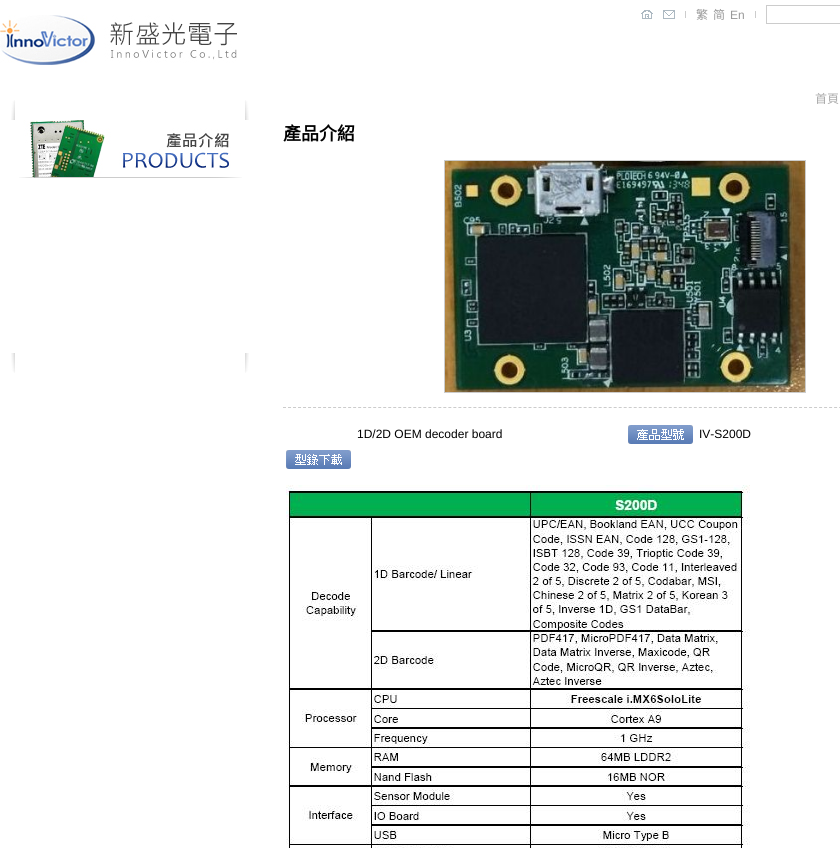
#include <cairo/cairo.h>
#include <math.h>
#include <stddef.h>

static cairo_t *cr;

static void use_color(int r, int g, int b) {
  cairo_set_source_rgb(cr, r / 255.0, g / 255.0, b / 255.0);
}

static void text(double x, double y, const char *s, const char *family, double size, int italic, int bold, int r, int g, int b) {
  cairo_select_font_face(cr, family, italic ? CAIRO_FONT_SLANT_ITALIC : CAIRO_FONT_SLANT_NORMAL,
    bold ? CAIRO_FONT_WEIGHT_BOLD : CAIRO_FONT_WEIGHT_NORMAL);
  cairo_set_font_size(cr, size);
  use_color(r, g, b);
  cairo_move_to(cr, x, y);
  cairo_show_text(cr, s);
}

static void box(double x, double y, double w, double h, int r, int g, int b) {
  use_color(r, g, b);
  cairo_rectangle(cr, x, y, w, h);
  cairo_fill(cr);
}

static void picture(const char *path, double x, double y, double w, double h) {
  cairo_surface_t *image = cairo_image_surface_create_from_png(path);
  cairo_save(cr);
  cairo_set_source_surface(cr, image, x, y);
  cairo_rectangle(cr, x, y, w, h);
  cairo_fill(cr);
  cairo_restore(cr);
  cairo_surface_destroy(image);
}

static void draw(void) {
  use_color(255, 255, 255);
  cairo_paint(cr);
  picture("img_01.png", 0, 15, 237, 50);
  picture("img_02.png", 641, 10, 12, 9);
  picture("img_03.png", 663, 10, 12, 9);
  box(685, 11, 1, 7, 204, 204, 204);
  box(755, 11, 1, 7, 204, 204, 204);
  cairo_rectangle(cr, 766.5, 5.5, 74, 18);
  cairo_set_line_width(cr, 1);
  cairo_stroke(cr);
  picture("img_04.png", 11, 100, 238, 20);
  picture("img_05.png", 19, 120, 223, 58);
  picture("img_06.png", 11, 353, 238, 20);
  cairo_rectangle(cr, 444.5, 160.5, 361, 232);
  cairo_stroke(cr);
  picture("img_07.png", 445, 161, 360, 231);
  cairo_new_path(cr);
  cairo_move_to(cr, 283, 407.5);
  cairo_line_to(cr, 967, 407.5);
  cairo_set_dash(cr, (double[]){3, 2.01}, 2, 0);
  cairo_stroke(cr);
  picture("img_08.png", 628, 425, 65, 19);
  picture("img_09.png", 286, 450, 65, 19);
  picture("img_10.png", 286, 485, 464, 363);
  text(696, 19, "繁", "Noto Sans CJK TC", 12, 0, 0, 153, 153, 153);
  text(713, 19, "简", "Noto Sans CJK TC", 12, 0, 0, 153, 153, 153);
  text(730, 19, "En", "Liberation Sans", 12, 0, 0, 153, 153, 153);
  text(815, 103, "首頁", "Noto Sans CJK TC", 12, 0, 0, 170, 170, 170);
  text(283, 140, "產品介紹", "Noto Sans CJK TC", 18, 0, 1, 0, 0, 0);
  text(357, 438, "1D/2D OEM decoder board", "Liberation Sans", 12, 0, 0, 0, 0, 0);
  text(699, 438, "IV-S200D", "Liberation Sans", 12, 0, 0, 0, 0, 0);
}

int main(void) {
  cairo_surface_t *surface = cairo_image_surface_create(CAIRO_FORMAT_RGB24, 840, 848);
  cr = cairo_create(surface);
  cairo_font_options_t *options = cairo_font_options_create();
  cairo_font_options_set_hint_metrics(options, CAIRO_HINT_METRICS_OFF);
  cairo_font_options_set_hint_style(options, CAIRO_HINT_STYLE_NONE);
  cairo_set_font_options(cr, options);
  cairo_set_miter_limit(cr, 4);
  draw();
  cairo_surface_write_to_png(surface, "out.png");
  cairo_font_options_destroy(options);
  cairo_destroy(cr);
  cairo_surface_destroy(surface);
  return 0;
}
